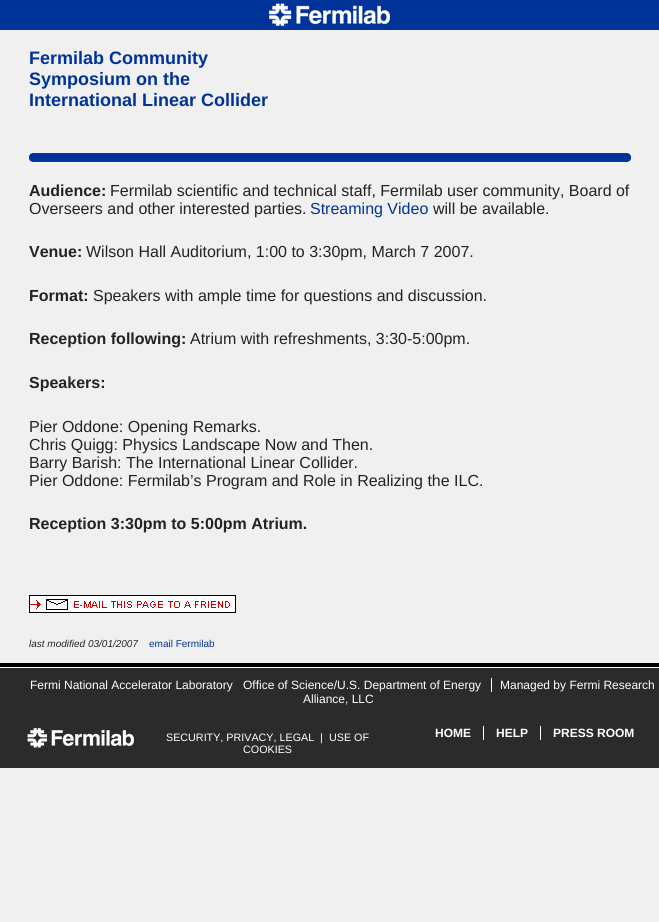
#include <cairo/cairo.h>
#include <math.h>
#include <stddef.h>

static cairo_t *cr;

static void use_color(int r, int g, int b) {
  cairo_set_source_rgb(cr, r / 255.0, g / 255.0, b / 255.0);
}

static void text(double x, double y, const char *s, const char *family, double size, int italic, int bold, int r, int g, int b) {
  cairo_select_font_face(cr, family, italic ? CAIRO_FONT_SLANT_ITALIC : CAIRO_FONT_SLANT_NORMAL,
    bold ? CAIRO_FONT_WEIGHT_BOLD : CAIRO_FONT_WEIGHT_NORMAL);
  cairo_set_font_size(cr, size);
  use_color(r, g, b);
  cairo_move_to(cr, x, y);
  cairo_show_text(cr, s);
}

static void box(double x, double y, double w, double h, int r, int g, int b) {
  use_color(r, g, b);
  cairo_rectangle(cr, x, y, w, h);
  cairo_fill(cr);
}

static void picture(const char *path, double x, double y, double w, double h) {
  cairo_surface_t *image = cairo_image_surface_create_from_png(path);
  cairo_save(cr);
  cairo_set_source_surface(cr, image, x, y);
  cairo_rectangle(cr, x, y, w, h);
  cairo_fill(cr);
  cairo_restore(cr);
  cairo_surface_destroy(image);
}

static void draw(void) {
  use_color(240, 240, 240);
  cairo_paint(cr);
  box(0, 0, 659, 30, 0, 51, 152);
  picture("img_01.png", 269, 3, 121, 23);
  picture("img_02.png", 29, 153, 602, 9);
  picture("img_03.png", 29, 595, 207, 18);
  box(0, 663, 659, 4, 0, 0, 0);
  box(0, 668, 659, 100, 43, 43, 43);
  box(0, 667, 659, 1, 255, 255, 255);
  box(491, 678, 1, 14, 255, 255, 255);
  picture("img_04.png", 27, 727, 109, 23);
  box(483, 726, 1, 14, 255, 255, 255);
  box(540, 726, 1, 14, 255, 255, 255);
  text(29, 64, "Fermilab Community", "Liberation Sans", 18, 0, 1, 0, 51, 153);
  text(29, 85, "Symposium on the", "Liberation Sans", 18, 0, 1, 0, 51, 153);
  text(29, 106, "International Linear Collider", "Liberation Sans", 18, 0, 1, 0, 51, 153);
  text(29, 196, "Audience:", "Liberation Sans", 16, 0, 1, 34, 34, 34);
  text(110, 196, "Fermilab scientific and technical staff, Fermilab user community, Board of", "Liberation Sans", 16, 0, 0, 34, 34, 34);
  text(29, 214, "Overseers and other interested parties.", "Liberation Sans", 16, 0, 0, 34, 34, 34);
  text(310, 214, "Streaming Video", "Liberation Sans", 16, 0, 0, 0, 51, 153);
  text(433, 214, "will be available.", "Liberation Sans", 16, 0, 0, 34, 34, 34);
  text(29, 257, "Venue:", "Liberation Sans", 16, 0, 1, 34, 34, 34);
  text(86, 257, "Wilson Hall Auditorium, 1:00 to 3:30pm, March 7 2007.", "Liberation Sans", 16, 0, 0, 34, 34, 34);
  text(29, 301, "Format:", "Liberation Sans", 16, 0, 1, 34, 34, 34);
  text(93, 301, "Speakers with ample time for questions and discussion.", "Liberation Sans", 16, 0, 0, 34, 34, 34);
  text(29, 344, "Reception following:", "Liberation Sans", 16, 0, 1, 34, 34, 34);
  text(190, 344, "Atrium with refreshments, 3:30-5:00pm.", "Liberation Sans", 16, 0, 0, 34, 34, 34);
  text(29, 388, "Speakers:", "Liberation Sans", 16, 0, 1, 34, 34, 34);
  text(29, 432, "Pier Oddone: Opening Remarks.", "Liberation Sans", 16, 0, 0, 34, 34, 34);
  text(29, 450, "Chris Quigg: Physics Landscape Now and Then.", "Liberation Sans", 16, 0, 0, 34, 34, 34);
  text(29, 468, "Barry Barish: The International Linear Collider.", "Liberation Sans", 16, 0, 0, 34, 34, 34);
  text(29, 486, "Pier Oddone: Fermilab’s Program and Role in Realizing the ILC.", "Liberation Sans", 16, 0, 0, 34, 34, 34);
  text(29, 529, "Reception 3:30pm to 5:00pm Atrium.", "Liberation Sans", 16, 0, 1, 34, 34, 34);
  text(29, 647, "last modified 03/01/2007", "Liberation Sans", 10, 1, 0, 34, 34, 34);
  text(149, 647, "email Fermilab", "Liberation Sans", 10, 0, 0, 0, 51, 153);
  text(30, 689, "Fermi National Accelerator Laboratory", "Liberation Sans", 12, 0, 0, 255, 255, 255);
  text(243, 689, "Office of Science/U.S. Department of Energy", "Liberation Sans", 12, 0, 0, 255, 255, 255);
  text(500, 689, "Managed by Fermi Research", "Liberation Sans", 12, 0, 0, 255, 255, 255);
  text(303, 703, "Alliance, LLC", "Liberation Sans", 12, 0, 0, 255, 255, 255);
  text(166, 741, "SECURITY, PRIVACY, LEGAL", "Liberation Sans", 10.75, 0, 0, 255, 255, 255);
  text(320, 741, "|", "Liberation Sans", 10.75, 0, 0, 255, 255, 255);
  text(329, 741, "USE OF", "Liberation Sans", 10.75, 0, 0, 255, 255, 255);
  text(243, 753, "COOKIES", "Liberation Sans", 10.75, 0, 0, 255, 255, 255);
  text(435, 737, "HOME", "Liberation Sans", 12, 0, 1, 255, 255, 255);
  text(496, 737, "HELP", "Liberation Sans", 12, 0, 1, 255, 255, 255);
  text(553, 737, "PRESS ROOM", "Liberation Sans", 12, 0, 1, 255, 255, 255);
}

int main(void) {
  cairo_surface_t *surface = cairo_image_surface_create(CAIRO_FORMAT_RGB24, 659, 922);
  cr = cairo_create(surface);
  cairo_font_options_t *options = cairo_font_options_create();
  cairo_font_options_set_hint_metrics(options, CAIRO_HINT_METRICS_OFF);
  cairo_font_options_set_hint_style(options, CAIRO_HINT_STYLE_NONE);
  cairo_set_font_options(cr, options);
  cairo_set_miter_limit(cr, 4);
  draw();
  cairo_surface_write_to_png(surface, "out.png");
  cairo_font_options_destroy(options);
  cairo_destroy(cr);
  cairo_surface_destroy(surface);
  return 0;
}
